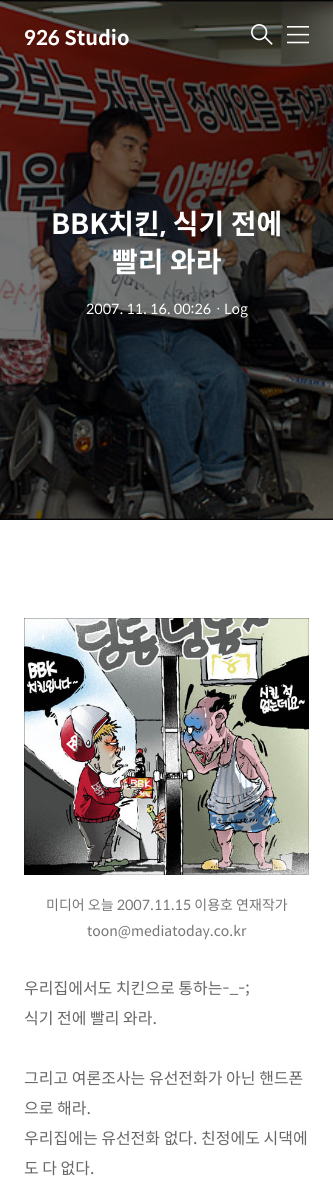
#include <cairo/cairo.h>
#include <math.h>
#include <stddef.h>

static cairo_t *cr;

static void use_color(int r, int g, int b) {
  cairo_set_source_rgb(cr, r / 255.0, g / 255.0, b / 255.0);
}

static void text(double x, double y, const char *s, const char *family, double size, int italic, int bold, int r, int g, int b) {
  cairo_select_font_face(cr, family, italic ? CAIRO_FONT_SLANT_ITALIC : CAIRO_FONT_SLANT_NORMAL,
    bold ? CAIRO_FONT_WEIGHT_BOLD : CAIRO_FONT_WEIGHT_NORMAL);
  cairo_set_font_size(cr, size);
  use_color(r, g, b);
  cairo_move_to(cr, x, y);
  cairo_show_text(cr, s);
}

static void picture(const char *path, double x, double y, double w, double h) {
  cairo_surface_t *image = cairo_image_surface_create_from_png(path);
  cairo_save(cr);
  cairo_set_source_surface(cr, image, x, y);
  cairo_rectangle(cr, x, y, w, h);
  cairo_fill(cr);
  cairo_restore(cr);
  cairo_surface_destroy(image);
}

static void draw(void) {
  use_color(255, 255, 255);
  cairo_paint(cr);
  picture("img_03.png", 0, 0, 333, 520);
  picture("img_01.png", 251, 24, 22, 21);
  picture("img_02.png", 287, 26, 22, 18);
  picture("img_04.png", 24, 618, 285, 257);
  text(24, 45, "926 Studio", "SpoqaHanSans", 20, 0, 1, 255, 255, 255);
  text(51, 234, "BBK치킨, 식기 전에", "SpoqaHanSans", 28, 0, 1, 255, 255, 255);
  text(112, 272, "빨리 와라", "SpoqaHanSans", 28, 0, 1, 255, 255, 255);
  text(86, 314, "2007. 11. 16. 00:26ㆍLog", "SpoqaHanSans", 14, 0, 0, 255, 255, 255);
  text(46, 910, "미디어 오늘 2007.11.15 이용호 연재작가", "SpoqaHanSans", 14, 0, 0, 117, 117, 117);
  text(87, 936, "toon@mediatoday.co.kr", "SpoqaHanSans", 14, 0, 0, 117, 117, 117);
  text(24, 994, "우리집에서도 치킨으로 통하는-_-;", "SpoqaHanSans", 16, 0, 0, 102, 102, 102);
  text(24, 1024, "식기 전에 빨리 와라.", "SpoqaHanSans", 16, 0, 0, 102, 102, 102);
  text(24, 1084, "그리고 여론조사는 유선전화가 아닌 핸드폰", "SpoqaHanSans", 16, 0, 0, 102, 102, 102);
  text(24, 1114, "으로 해라.", "SpoqaHanSans", 16, 0, 0, 102, 102, 102);
  text(24, 1144, "우리집에는 유선전화 없다. 친정에도 시댁에", "SpoqaHanSans", 16, 0, 0, 102, 102, 102);
  text(24, 1174, "도 다 없다.", "SpoqaHanSans", 16, 0, 0, 102, 102, 102);
}

int main(void) {
  cairo_surface_t *surface = cairo_image_surface_create(CAIRO_FORMAT_RGB24, 333, 1197);
  cr = cairo_create(surface);
  cairo_font_options_t *options = cairo_font_options_create();
  cairo_font_options_set_hint_metrics(options, CAIRO_HINT_METRICS_OFF);
  cairo_font_options_set_hint_style(options, CAIRO_HINT_STYLE_NONE);
  cairo_set_font_options(cr, options);
  cairo_set_miter_limit(cr, 4);
  draw();
  cairo_surface_write_to_png(surface, "out.png");
  cairo_font_options_destroy(options);
  cairo_destroy(cr);
  cairo_surface_destroy(surface);
  return 0;
}
